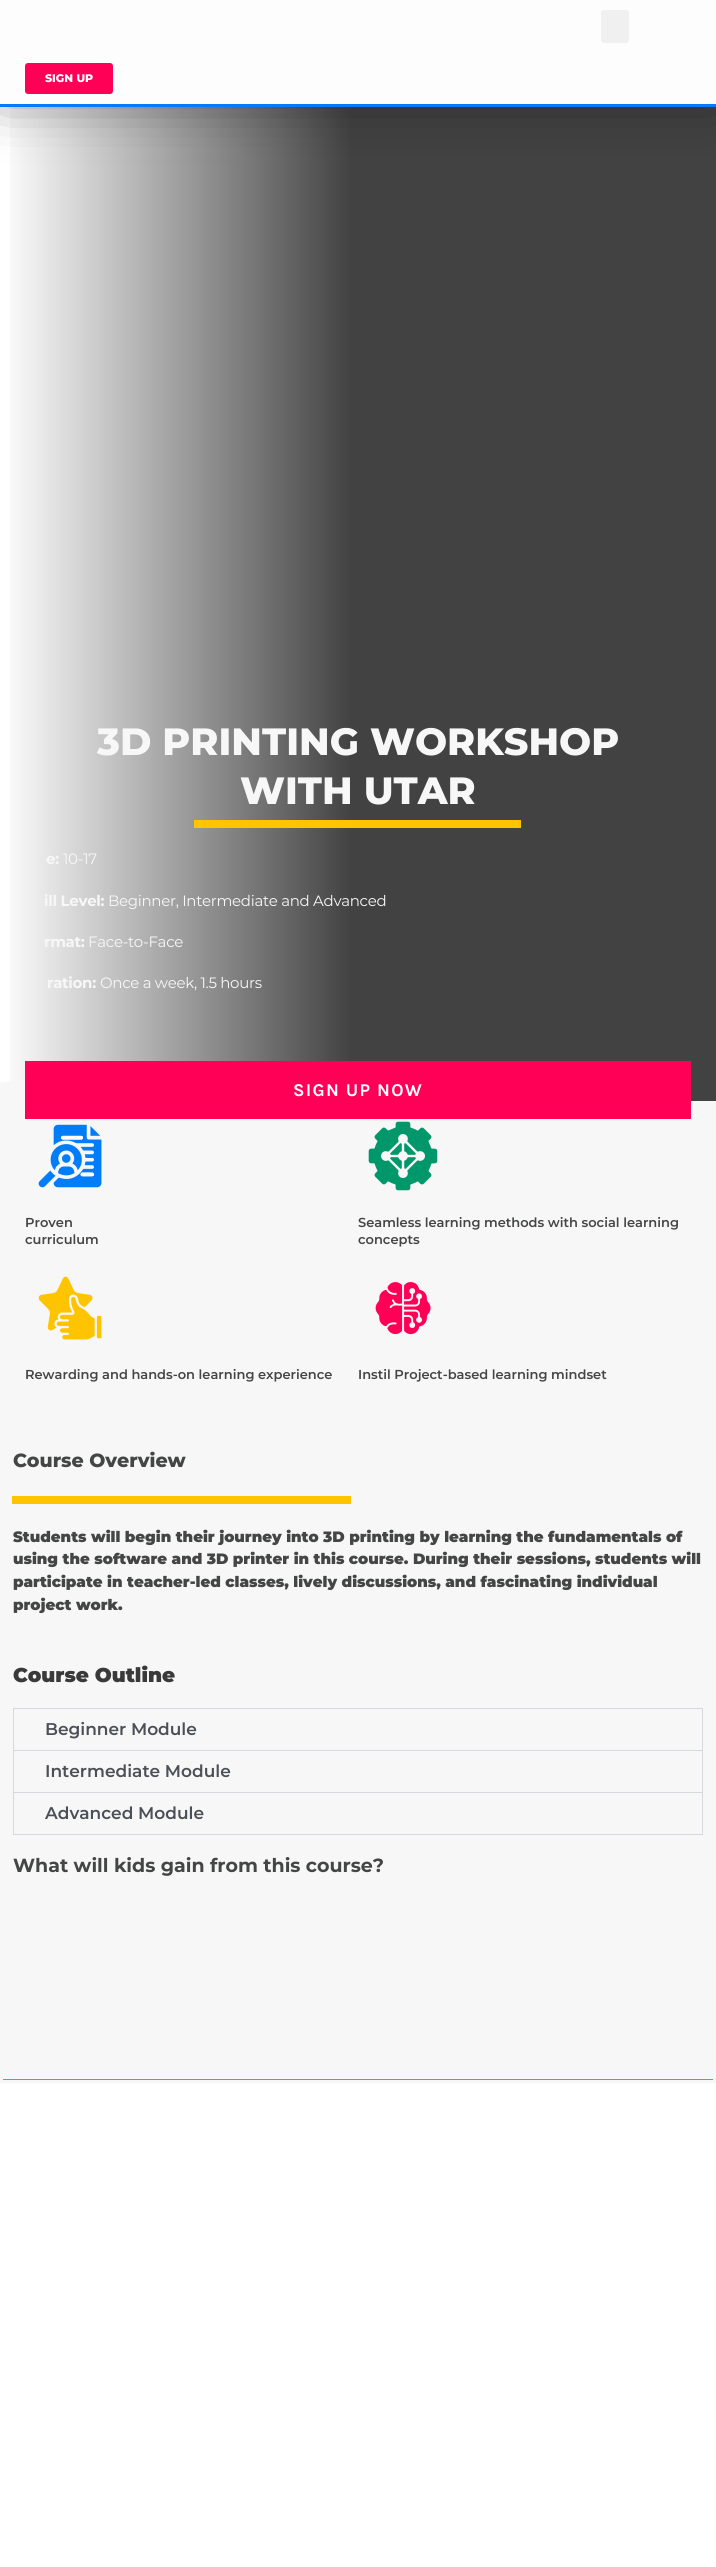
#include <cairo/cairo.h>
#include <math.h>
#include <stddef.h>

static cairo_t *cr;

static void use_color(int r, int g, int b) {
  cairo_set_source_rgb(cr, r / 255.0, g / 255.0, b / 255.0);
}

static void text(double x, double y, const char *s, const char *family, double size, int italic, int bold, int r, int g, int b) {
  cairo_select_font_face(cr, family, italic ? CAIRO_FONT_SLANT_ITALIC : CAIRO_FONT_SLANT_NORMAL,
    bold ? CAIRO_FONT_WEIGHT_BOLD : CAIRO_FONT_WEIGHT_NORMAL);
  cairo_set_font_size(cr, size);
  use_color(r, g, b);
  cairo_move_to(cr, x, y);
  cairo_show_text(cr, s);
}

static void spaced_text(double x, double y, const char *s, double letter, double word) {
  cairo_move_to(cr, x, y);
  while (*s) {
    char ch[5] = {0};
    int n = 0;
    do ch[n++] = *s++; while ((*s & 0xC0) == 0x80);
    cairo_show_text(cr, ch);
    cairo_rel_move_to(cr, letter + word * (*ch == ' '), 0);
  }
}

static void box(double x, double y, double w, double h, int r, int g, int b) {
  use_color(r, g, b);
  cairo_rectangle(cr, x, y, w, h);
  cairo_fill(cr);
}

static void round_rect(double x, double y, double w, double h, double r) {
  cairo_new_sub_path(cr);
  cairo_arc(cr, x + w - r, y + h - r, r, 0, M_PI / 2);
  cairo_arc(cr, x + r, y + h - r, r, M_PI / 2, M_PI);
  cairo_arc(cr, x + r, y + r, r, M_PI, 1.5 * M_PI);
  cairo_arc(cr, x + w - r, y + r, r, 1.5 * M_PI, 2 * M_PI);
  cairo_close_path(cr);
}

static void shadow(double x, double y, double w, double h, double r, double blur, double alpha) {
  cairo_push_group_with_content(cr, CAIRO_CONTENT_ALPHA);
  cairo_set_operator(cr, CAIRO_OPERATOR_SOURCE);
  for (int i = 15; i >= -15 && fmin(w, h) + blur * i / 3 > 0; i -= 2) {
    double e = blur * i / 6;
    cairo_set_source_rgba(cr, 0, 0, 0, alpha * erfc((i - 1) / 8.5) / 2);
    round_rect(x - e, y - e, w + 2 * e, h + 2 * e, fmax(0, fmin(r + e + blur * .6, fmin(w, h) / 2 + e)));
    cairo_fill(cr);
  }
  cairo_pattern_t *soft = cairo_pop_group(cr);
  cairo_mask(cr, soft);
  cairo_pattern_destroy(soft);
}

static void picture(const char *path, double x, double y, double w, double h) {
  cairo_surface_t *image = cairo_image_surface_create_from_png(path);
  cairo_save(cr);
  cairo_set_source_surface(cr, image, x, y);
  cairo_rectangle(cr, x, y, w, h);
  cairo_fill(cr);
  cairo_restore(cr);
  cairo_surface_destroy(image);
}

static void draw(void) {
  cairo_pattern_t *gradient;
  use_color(255, 255, 255);
  cairo_paint(cr);
  use_color(0, 0, 0);
  shadow(0, -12, 716, 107, 0, 28.5, 0.5);
  box(0, 104, 716, 3, 1, 125, 247);
  box(0, 0, 716, 104, 253, 253, 253);
  use_color(240, 240, 240);
  round_rect(601, 10, 28, 33, 3);
  cairo_fill(cr);
  use_color(255, 0, 86);
  round_rect(25, 63, 88, 31, 3);
  cairo_fill(cr);
  gradient = cairo_pattern_create_linear(716, 628, 0, 628);
  cairo_pattern_add_color_stop_rgba(gradient, 0.51, 0, 0, 0, 0.74);
  cairo_pattern_add_color_stop_rgba(gradient, 1, 0, 0, 0, 0);
  cairo_set_source(cr, gradient);
  cairo_pattern_destroy(gradient);
  cairo_rectangle(cr, 10, 107, 706, 994);
  cairo_fill(cr);
  box(194, 820, 327, 8, 255, 196, 0);
  use_color(247, 247, 247);
  cairo_new_path(cr);
  cairo_move_to(cr, 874, 1151);
  cairo_line_to(cr, 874, 1146);
  cairo_curve_to(cr, 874, 1131, 626, 1071, 239, 1071);
  cairo_curve_to(cr, -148, 1072, -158, 1131, -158, 1146);
  cairo_line_to(cr, -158, 1151);
  cairo_close_path(cr);
  cairo_fill(cr);
  box(0, 1101, 716, 982, 247, 247, 247);
  box(25, 1061, 666, 58, 255, 0, 86);
  picture("img_01.png", 38, 1124, 64, 64);
  picture("img_02.png", 368, 1121, 70, 70);
  picture("img_03.png", 38, 1276, 64, 64);
  picture("img_04.png", 375, 1282, 56, 53);
  box(12, 1496, 339, 8, 255, 196, 0);
  cairo_rectangle(cr, 13.5, 1708.5, 689, 42);
  use_color(213, 216, 220);
  cairo_set_line_width(cr, 1);
  cairo_stroke(cr);
  box(702, 1751, 1, 84, 213, 216, 220);
  box(13, 1792, 690, 1, 213, 216, 220);
  box(13, 1751, 1, 42, 213, 216, 220);
  box(13, 1834, 690, 1, 213, 216, 220);
  box(13, 1793, 1, 42, 213, 216, 220);
  box(3, 2079, 710, 1, 37, 175, 244);
  text(45, 82, "SIGN UP", "Montserrat ExtraBold", 11, 0, 0, 255, 255, 255);
  text(97, 755, "3D PRINTING WORKSHOP", "Montserrat ExtraBold", 38, 0, 0, 247, 247, 247);
  text(240, 804, "WITH UTAR", "Montserrat ExtraBold", 38, 0, 0, 247, 247, 247);
  cairo_select_font_face(cr, "Montserrat", CAIRO_FONT_SLANT_NORMAL, CAIRO_FONT_WEIGHT_BOLD);
  cairo_set_font_size(cr, 15);
  spaced_text(46, 864, "e:", -0.3, 0);
  cairo_select_font_face(cr, "Montserrat", CAIRO_FONT_SLANT_NORMAL, CAIRO_FONT_WEIGHT_NORMAL);
  spaced_text(63, 864, "10-17", -0.3, 0);
  cairo_select_font_face(cr, "Montserrat", CAIRO_FONT_SLANT_NORMAL, CAIRO_FONT_WEIGHT_BOLD);
  spaced_text(44, 906, "ill Level:", -0.3, 0);
  cairo_select_font_face(cr, "Montserrat", CAIRO_FONT_SLANT_NORMAL, CAIRO_FONT_WEIGHT_NORMAL);
  spaced_text(108, 906, "Beginner, Intermediate and Advanced", -0.3, 0);
  cairo_select_font_face(cr, "Montserrat", CAIRO_FONT_SLANT_NORMAL, CAIRO_FONT_WEIGHT_BOLD);
  spaced_text(44, 947, "rmat:", -0.3, 0);
  cairo_select_font_face(cr, "Montserrat", CAIRO_FONT_SLANT_NORMAL, CAIRO_FONT_WEIGHT_NORMAL);
  spaced_text(88, 947, "Face-to-Face", -0.3, 0);
  cairo_select_font_face(cr, "Montserrat", CAIRO_FONT_SLANT_NORMAL, CAIRO_FONT_WEIGHT_BOLD);
  spaced_text(47, 988, "ration:", -0.3, 0);
  cairo_select_font_face(cr, "Montserrat", CAIRO_FONT_SLANT_NORMAL, CAIRO_FONT_WEIGHT_NORMAL);
  spaced_text(100, 988, "Once a week, 1.5 hours", -0.3, 0);
  cairo_select_font_face(cr, "Karla", CAIRO_FONT_SLANT_NORMAL, CAIRO_FONT_WEIGHT_BOLD);
  cairo_set_font_size(cr, 18);
  use_color(255, 255, 255);
  spaced_text(293, 1096, "SIGN UP NOW", 1.25, 0);
  text(25, 1227, "Proven", "Montserrat SemiBold", 13, 0, 0, 68, 69, 69);
  text(25, 1244, "curriculum", "Montserrat SemiBold", 13, 0, 0, 68, 69, 69);
  text(358, 1227, "Seamless learning methods with social learning", "Montserrat SemiBold", 13, 0, 0, 68, 69, 69);
  text(358, 1244, "concepts", "Montserrat SemiBold", 13, 0, 0, 68, 69, 69);
  text(25, 1379, "Rewarding and hands-on learning experience", "Montserrat SemiBold", 13, 0, 0, 68, 69, 69);
  text(358, 1379, "Instil Project-based learning mindset", "Montserrat SemiBold", 13, 0, 0, 68, 69, 69);
  text(13, 1467, "Course Overview", "Montserrat ExtraBold", 19, 0, 0, 68, 69, 69);
  text(13, 1542, "Students will begin their journey into 3D printing by learning the fundamentals of", "Montserrat Black", 15, 0, 0, 68, 69, 69);
  text(13, 1564, "using the software and 3D printer in this course. During their sessions, students will", "Montserrat Black", 15, 0, 0, 68, 69, 69);
  text(13, 1587, "participate in teacher-led classes, lively discussions, and fascinating individual", "Montserrat Black", 15, 0, 0, 68, 69, 69);
  text(13, 1610, "project work.", "Montserrat Black", 15, 0, 0, 68, 69, 69);
  text(13, 1682, "Course Outline", "Montserrat Black", 20, 0, 0, 58, 58, 58);
  text(45, 1735, "Beginner Module", "Montserrat SemiBold", 17, 0, 0, 75, 79, 88);
  text(45, 1777, "Intermediate Module", "Montserrat SemiBold", 17, 0, 0, 75, 79, 88);
  text(45, 1819, "Advanced Module", "Montserrat SemiBold", 17, 0, 0, 75, 79, 88);
  text(13, 1872, "What will kids gain from this course?", "Montserrat", 19, 0, 1, 68, 69, 69);
}

int main(void) {
  cairo_surface_t *surface = cairo_image_surface_create(CAIRO_FORMAT_RGB24, 716, 2567);
  cr = cairo_create(surface);
  cairo_font_options_t *options = cairo_font_options_create();
  cairo_font_options_set_hint_metrics(options, CAIRO_HINT_METRICS_OFF);
  cairo_font_options_set_hint_style(options, CAIRO_HINT_STYLE_NONE);
  cairo_set_font_options(cr, options);
  cairo_set_miter_limit(cr, 4);
  draw();
  cairo_surface_write_to_png(surface, "out.png");
  cairo_font_options_destroy(options);
  cairo_destroy(cr);
  cairo_surface_destroy(surface);
  return 0;
}
